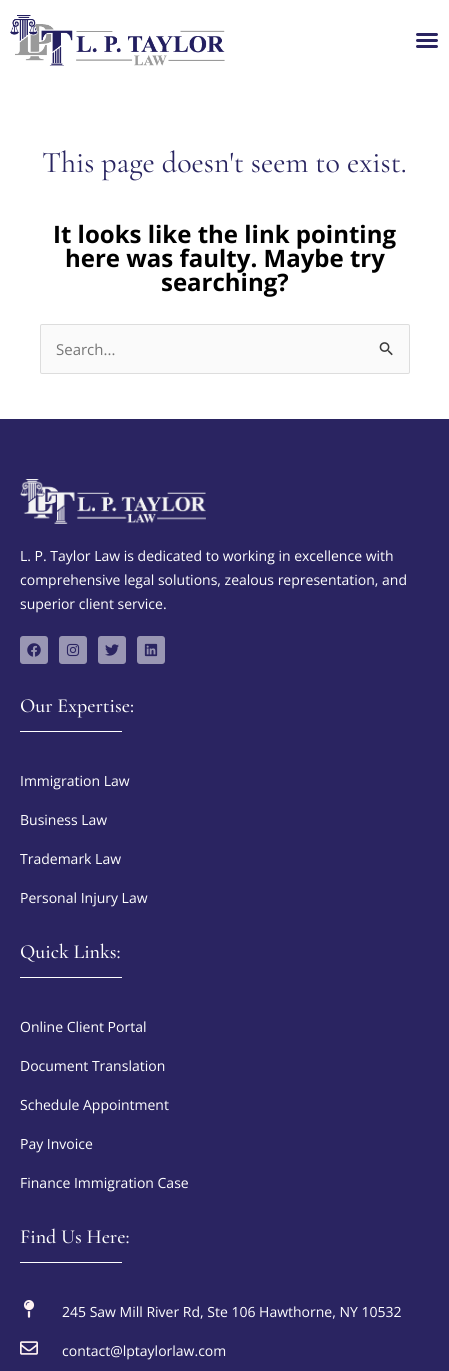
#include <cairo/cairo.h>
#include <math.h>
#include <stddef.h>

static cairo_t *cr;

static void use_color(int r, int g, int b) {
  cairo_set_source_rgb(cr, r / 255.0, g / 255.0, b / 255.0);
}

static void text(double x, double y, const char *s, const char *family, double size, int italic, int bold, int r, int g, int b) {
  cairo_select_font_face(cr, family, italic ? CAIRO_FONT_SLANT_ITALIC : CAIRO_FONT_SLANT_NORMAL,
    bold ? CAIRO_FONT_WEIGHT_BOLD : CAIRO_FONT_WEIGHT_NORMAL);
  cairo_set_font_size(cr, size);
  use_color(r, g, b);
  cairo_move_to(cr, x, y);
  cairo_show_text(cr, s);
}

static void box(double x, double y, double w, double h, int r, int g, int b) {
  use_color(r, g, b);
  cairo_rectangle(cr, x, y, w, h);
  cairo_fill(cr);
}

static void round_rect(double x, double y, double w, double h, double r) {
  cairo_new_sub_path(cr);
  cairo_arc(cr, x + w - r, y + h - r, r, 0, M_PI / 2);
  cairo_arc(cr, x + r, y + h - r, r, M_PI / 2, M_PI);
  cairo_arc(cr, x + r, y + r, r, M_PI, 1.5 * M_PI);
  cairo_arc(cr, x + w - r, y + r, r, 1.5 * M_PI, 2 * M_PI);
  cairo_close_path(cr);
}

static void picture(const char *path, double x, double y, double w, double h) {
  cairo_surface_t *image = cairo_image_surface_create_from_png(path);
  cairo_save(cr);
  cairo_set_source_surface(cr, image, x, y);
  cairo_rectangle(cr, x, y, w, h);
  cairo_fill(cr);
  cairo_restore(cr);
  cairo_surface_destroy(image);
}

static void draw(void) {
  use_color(255, 255, 255);
  cairo_paint(cr);
  picture("img_01.png", 10, 15, 215, 51);
  picture("img_02.png", 416, 33, 22, 15);
  use_color(250, 250, 250);
  round_rect(40.5, 324.5, 369, 49, 1.5);
  cairo_fill_preserve(cr);
  use_color(221, 221, 221);
  cairo_set_line_width(cr, 1);
  cairo_stroke(cr);
  picture("img_03.png", 379, 342, 14, 14);
  box(0, 419, 449, 952, 42, 36, 97);
  picture("img_04.png", 20, 479, 186, 45);
  use_color(153, 150, 179);
  round_rect(20, 636, 28, 28, 3);
  cairo_fill(cr);
  picture("img_05.png", 27, 643, 14, 14);
  round_rect(59, 636, 28, 28, 3);
  cairo_fill(cr);
  picture("img_06.png", 66, 643, 14, 14);
  round_rect(98, 636, 28, 28, 3);
  cairo_fill(cr);
  picture("img_07.png", 105, 644, 14, 12);
  round_rect(137, 636, 28, 28, 3);
  cairo_fill(cr);
  picture("img_08.png", 144, 643, 14, 14);
  box(20, 731, 102, 1, 255, 255, 255);
  box(20, 977, 102, 1, 255, 255, 255);
  box(20, 1262, 102, 1, 255, 255, 255);
  picture("img_09.png", 23, 1300, 12, 18);
  picture("img_10.png", 20, 1341, 18, 14);
  text(42, 172, "This page doesn't seem to exist.", "Cormorant Garamond Light", 30, 0, 0, 40, 36, 96);
  text(53, 243, "It looks like the link pointing", "Open Sans", 24, 0, 1, 0, 0, 0);
  text(65, 267, "here was faulty. Maybe try", "Open Sans", 24, 0, 1, 0, 0, 0);
  text(161, 291, "searching?", "Open Sans", 24, 0, 1, 0, 0, 0);
  text(56, 355, "Search...", "Open Sans", 15, 0, 0, 117, 117, 117);
  text(20, 561, "L. P. Taylor Law is dedicated to working in excellence with", "Open Sans", 14, 0, 0, 255, 255, 255);
  text(20, 585, "comprehensive legal solutions, zealous representation, and", "Open Sans", 14, 0, 0, 255, 255, 255);
  text(20, 609, "superior client service.", "Open Sans", 14, 0, 0, 255, 255, 255);
  text(20, 712, "Our Expertise:", "Cormorant Medium", 20, 0, 0, 255, 255, 255);
  text(20, 786, "Immigration Law", "Open Sans", 14, 0, 0, 255, 255, 255);
  text(20, 825, "Business Law", "Open Sans", 14, 0, 0, 255, 255, 255);
  text(20, 864, "Trademark Law", "Open Sans", 14, 0, 0, 255, 255, 255);
  text(20, 903, "Personal Injury Law", "Open Sans", 14, 0, 0, 255, 255, 255);
  text(20, 958, "Quick Links:", "Cormorant Medium", 20, 0, 0, 255, 255, 255);
  text(20, 1032, "Online Client Portal", "Open Sans", 14, 0, 0, 255, 255, 255);
  text(20, 1071, "Document Translation", "Open Sans", 14, 0, 0, 255, 255, 255);
  text(20, 1110, "Schedule Appointment", "Open Sans", 14, 0, 0, 255, 255, 255);
  text(20, 1149, "Pay Invoice", "Open Sans", 14, 0, 0, 255, 255, 255);
  text(20, 1188, "Finance Immigration Case", "Open Sans", 14, 0, 0, 255, 255, 255);
  text(20, 1243, "Find Us Here:", "Cormorant Medium", 20, 0, 0, 255, 255, 255);
  text(62, 1317, "245 Saw Mill River Rd, Ste 106 Hawthorne, NY 10532", "Open Sans", 14, 0, 0, 255, 255, 255);
  text(62, 1356, "contact@lptaylorlaw.com", "Open Sans", 14, 0, 0, 255, 255, 255);
}

int main(void) {
  cairo_surface_t *surface = cairo_image_surface_create(CAIRO_FORMAT_RGB24, 449, 1371);
  cr = cairo_create(surface);
  cairo_font_options_t *options = cairo_font_options_create();
  cairo_font_options_set_hint_metrics(options, CAIRO_HINT_METRICS_OFF);
  cairo_font_options_set_hint_style(options, CAIRO_HINT_STYLE_NONE);
  cairo_set_font_options(cr, options);
  cairo_set_miter_limit(cr, 4);
  draw();
  cairo_surface_write_to_png(surface, "out.png");
  cairo_font_options_destroy(options);
  cairo_destroy(cr);
  cairo_surface_destroy(surface);
  return 0;
}
